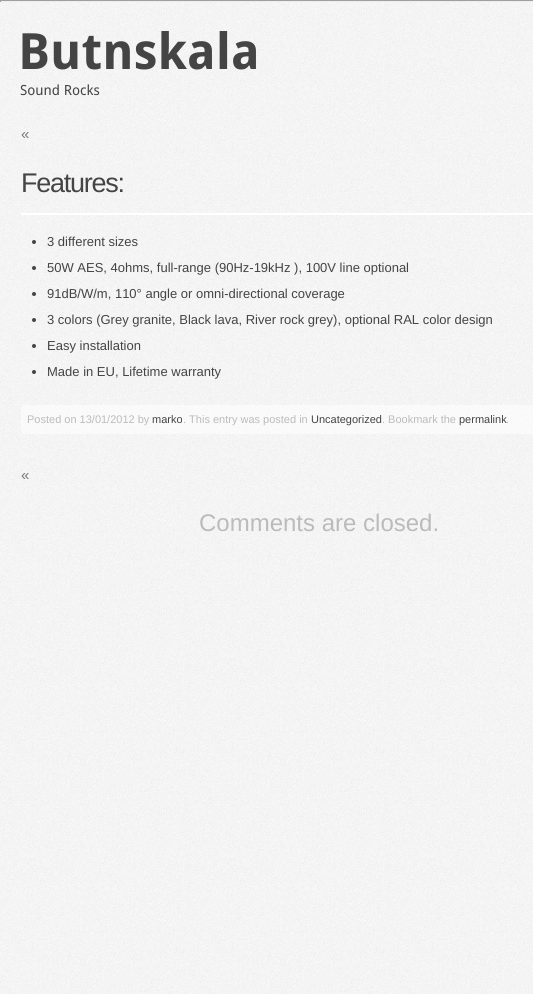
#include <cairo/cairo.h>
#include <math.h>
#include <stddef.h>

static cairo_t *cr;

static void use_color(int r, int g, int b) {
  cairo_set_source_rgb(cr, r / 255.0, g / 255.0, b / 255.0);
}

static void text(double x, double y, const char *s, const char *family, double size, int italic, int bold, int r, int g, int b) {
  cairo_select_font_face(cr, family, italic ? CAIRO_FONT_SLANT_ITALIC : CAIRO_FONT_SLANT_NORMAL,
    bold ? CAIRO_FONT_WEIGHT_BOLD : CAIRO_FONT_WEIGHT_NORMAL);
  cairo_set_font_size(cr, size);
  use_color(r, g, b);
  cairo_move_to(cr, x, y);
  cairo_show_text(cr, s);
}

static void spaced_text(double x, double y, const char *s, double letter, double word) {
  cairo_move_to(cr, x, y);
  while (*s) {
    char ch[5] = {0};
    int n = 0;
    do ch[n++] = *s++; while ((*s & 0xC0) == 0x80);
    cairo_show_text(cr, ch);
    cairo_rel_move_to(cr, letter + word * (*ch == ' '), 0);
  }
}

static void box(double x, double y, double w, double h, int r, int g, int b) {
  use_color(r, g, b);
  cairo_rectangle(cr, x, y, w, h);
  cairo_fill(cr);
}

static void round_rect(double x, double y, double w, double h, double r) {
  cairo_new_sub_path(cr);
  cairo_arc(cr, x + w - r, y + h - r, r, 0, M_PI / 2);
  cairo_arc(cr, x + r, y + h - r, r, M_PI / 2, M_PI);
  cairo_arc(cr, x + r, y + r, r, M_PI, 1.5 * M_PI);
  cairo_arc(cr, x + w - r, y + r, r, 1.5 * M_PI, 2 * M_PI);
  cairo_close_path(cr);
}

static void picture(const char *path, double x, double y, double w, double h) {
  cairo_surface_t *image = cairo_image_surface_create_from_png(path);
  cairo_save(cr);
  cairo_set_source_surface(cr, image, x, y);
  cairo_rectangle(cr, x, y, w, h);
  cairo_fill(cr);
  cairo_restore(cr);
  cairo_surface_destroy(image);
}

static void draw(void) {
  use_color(255, 255, 255);
  cairo_paint(cr);
  picture("img_01.png", 0, 2, 533, 992);
  box(0, 0, 533, 1, 159, 159, 159);
  box(0, 1, 533, 1, 238, 238, 238);
  box(0, 0, 1, 2, 159, 159, 159);
  box(21, 213, 512, 2, 255, 255, 255);
  use_color(68, 68, 68);
  cairo_arc(cr, 34, 242, 2, 0, 2 * M_PI);
  cairo_fill(cr);
  cairo_arc(cr, 34, 268, 2, 0, 2 * M_PI);
  cairo_fill(cr);
  cairo_arc(cr, 34, 294, 2, 0, 2 * M_PI);
  cairo_fill(cr);
  cairo_arc(cr, 34, 320, 2, 0, 2 * M_PI);
  cairo_fill(cr);
  cairo_arc(cr, 34, 346, 2, 0, 2 * M_PI);
  cairo_fill(cr);
  cairo_arc(cr, 34, 372, 2, 0, 2 * M_PI);
  cairo_fill(cr);
  cairo_set_source_rgba(cr, 1, 1, 1, 0.5);
  round_rect(21, 405, 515, 29, 3);
  cairo_fill(cr);
  text(18, 69, "Butnskala", "Droid Sans", 50, 0, 1, 68, 68, 68);
  text(20, 95, "Sound Rocks", "Droid Sans", 14, 0, 0, 68, 68, 68);
  text(21, 139, "«", "Liberation Sans", 15, 0, 0, 119, 119, 119);
  cairo_set_font_size(cr, 27);
  use_color(68, 68, 68);
  spaced_text(21, 192, "Features:", -1.25, 0);
  text(47, 246, "3 different sizes", "Liberation Sans", 13, 0, 0, 68, 68, 68);
  text(47, 272, "50W AES, 4ohms, full-range (90Hz-19kHz ), 100V line optional", "Liberation Sans", 13, 0, 0, 68, 68, 68);
  text(47, 298, "91dB/W/m, 110° angle or omni-directional coverage", "Liberation Sans", 13, 0, 0, 68, 68, 68);
  text(47, 324, "3 colors (Grey granite, Black lava, River rock grey), optional RAL color design", "Liberation Sans", 13, 0, 0, 68, 68, 68);
  text(47, 350, "Easy installation", "Liberation Sans", 13, 0, 0, 68, 68, 68);
  text(47, 376, "Made in EU, Lifetime warranty", "Liberation Sans", 13, 0, 0, 68, 68, 68);
  text(27, 423, "Posted on 13/01/2012 by", "Liberation Sans", 11, 0, 0, 187, 187, 187);
  text(152, 423, "marko", "Liberation Sans", 11, 0, 0, 68, 68, 68);
  text(183, 423, ". This entry was posted in", "Liberation Sans", 11, 0, 0, 187, 187, 187);
  text(311, 423, "Uncategorized", "Liberation Sans", 11, 0, 0, 68, 68, 68);
  text(382, 423, ". Bookmark the", "Liberation Sans", 11, 0, 0, 187, 187, 187);
  text(459, 423, "permalink", "Liberation Sans", 11, 0, 0, 68, 68, 68);
  text(506, 423, ".", "Liberation Sans", 11, 0, 0, 187, 187, 187);
  text(21, 480, "«", "Liberation Sans", 15, 0, 0, 119, 119, 119);
  text(199, 531, "Comments are closed.", "Liberation Sans", 24, 0, 0, 187, 187, 187);
}

int main(void) {
  cairo_surface_t *surface = cairo_image_surface_create(CAIRO_FORMAT_RGB24, 533, 994);
  cr = cairo_create(surface);
  cairo_font_options_t *options = cairo_font_options_create();
  cairo_font_options_set_hint_metrics(options, CAIRO_HINT_METRICS_OFF);
  cairo_font_options_set_hint_style(options, CAIRO_HINT_STYLE_NONE);
  cairo_set_font_options(cr, options);
  cairo_set_miter_limit(cr, 4);
  draw();
  cairo_surface_write_to_png(surface, "out.png");
  cairo_font_options_destroy(options);
  cairo_destroy(cr);
  cairo_surface_destroy(surface);
  return 0;
}
